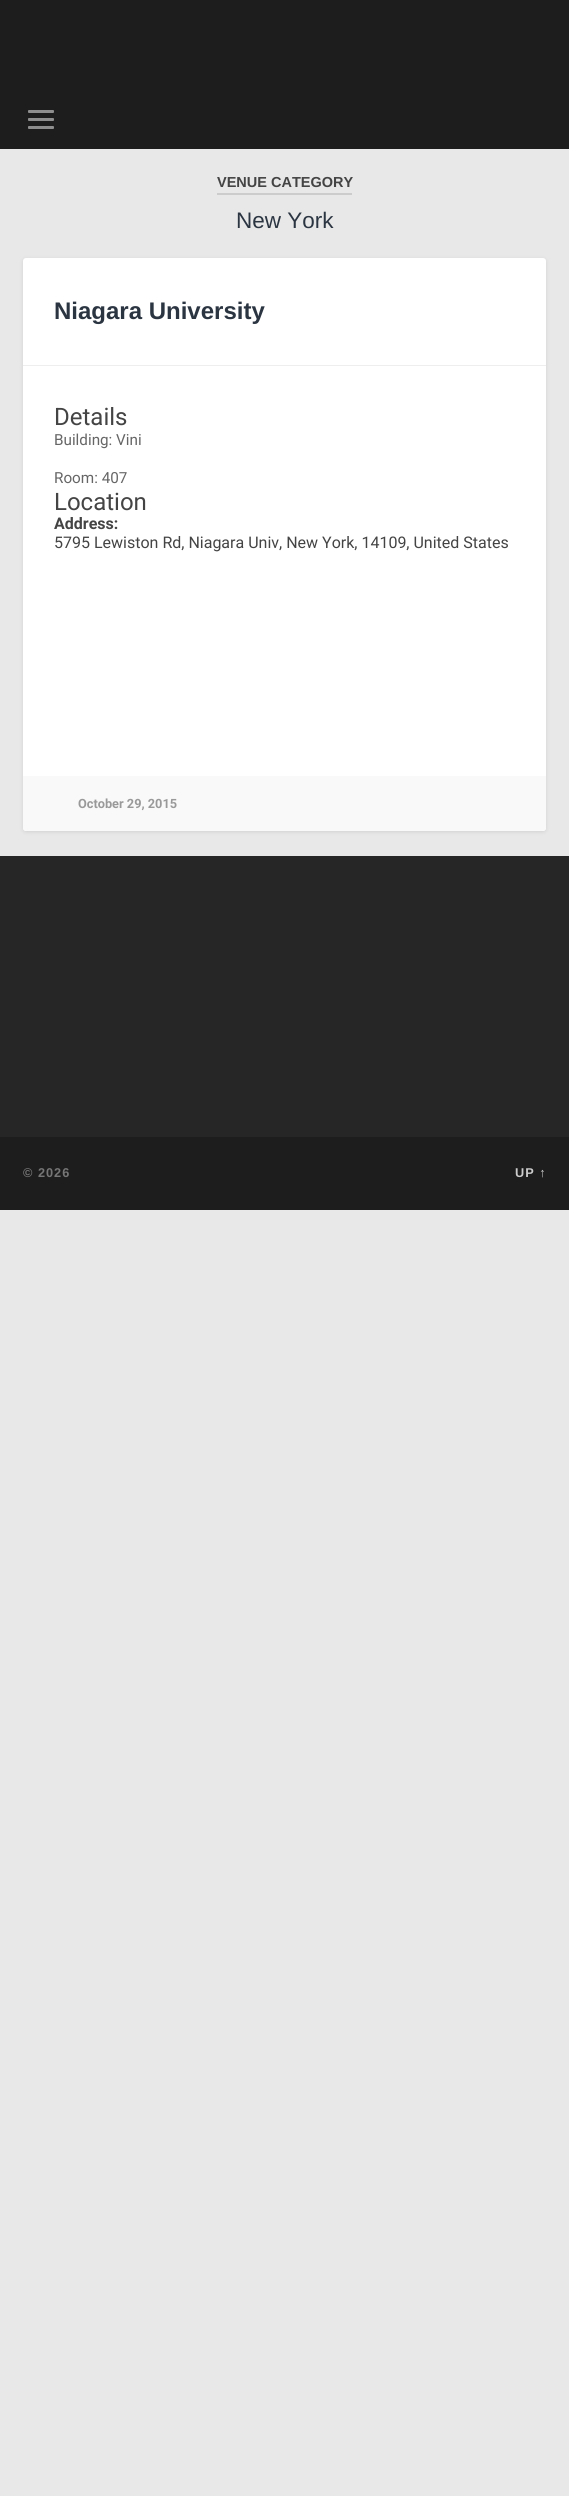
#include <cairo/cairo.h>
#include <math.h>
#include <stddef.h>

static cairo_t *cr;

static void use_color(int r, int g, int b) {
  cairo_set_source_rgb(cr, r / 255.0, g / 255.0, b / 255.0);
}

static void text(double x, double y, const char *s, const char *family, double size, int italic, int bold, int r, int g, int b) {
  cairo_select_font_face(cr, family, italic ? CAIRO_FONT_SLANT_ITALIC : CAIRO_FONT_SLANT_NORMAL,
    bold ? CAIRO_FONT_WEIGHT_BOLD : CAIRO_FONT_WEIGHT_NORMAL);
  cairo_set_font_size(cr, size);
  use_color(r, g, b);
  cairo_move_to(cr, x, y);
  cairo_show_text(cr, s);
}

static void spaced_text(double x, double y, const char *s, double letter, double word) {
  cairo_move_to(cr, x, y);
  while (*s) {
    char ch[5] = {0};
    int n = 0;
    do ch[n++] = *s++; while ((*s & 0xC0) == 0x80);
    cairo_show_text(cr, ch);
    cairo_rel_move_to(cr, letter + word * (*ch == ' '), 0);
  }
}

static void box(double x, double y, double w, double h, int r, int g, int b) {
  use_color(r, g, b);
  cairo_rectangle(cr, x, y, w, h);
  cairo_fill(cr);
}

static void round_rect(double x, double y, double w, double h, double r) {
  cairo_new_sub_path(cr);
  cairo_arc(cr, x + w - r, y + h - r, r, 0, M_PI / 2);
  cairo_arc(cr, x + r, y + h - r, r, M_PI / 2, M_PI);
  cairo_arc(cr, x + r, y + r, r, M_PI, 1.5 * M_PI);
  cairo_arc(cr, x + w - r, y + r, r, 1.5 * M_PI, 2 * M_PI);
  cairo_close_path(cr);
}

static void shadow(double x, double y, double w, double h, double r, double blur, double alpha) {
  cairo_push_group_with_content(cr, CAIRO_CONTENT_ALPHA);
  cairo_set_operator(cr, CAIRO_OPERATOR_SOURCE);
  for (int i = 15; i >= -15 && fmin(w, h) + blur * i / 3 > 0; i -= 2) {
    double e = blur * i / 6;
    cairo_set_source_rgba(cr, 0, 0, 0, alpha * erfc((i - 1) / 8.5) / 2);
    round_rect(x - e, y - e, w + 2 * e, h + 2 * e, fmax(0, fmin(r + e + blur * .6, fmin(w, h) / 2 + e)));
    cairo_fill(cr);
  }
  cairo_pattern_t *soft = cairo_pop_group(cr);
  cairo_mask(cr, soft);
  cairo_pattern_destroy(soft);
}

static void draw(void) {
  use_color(232, 232, 232);
  cairo_paint(cr);
  box(0, 0, 569, 149, 29, 29, 29);
  use_color(142, 142, 142);
  round_rect(28, 110, 26, 3, 1);
  cairo_fill(cr);
  round_rect(28, 118, 26, 3, 1);
  cairo_fill(cr);
  round_rect(28, 126, 26, 3, 1);
  cairo_fill(cr);
  box(217, 193, 135, 2, 204, 204, 204);
  use_color(0, 0, 0);
  shadow(23, 259, 523, 573, 3, 2, 0.1);
  use_color(255, 255, 255);
  round_rect(23, 258, 523, 573, 3);
  cairo_fill(cr);
  box(23, 365, 523, 1, 238, 238, 238);
  use_color(249, 249, 249);
  cairo_new_path(cr);
  cairo_move_to(cr, 23, 776);
  cairo_line_to(cr, 546, 776);
  cairo_line_to(cr, 546, 828);
  cairo_curve_to(cr, 546, 829.5, 544.5, 831, 543, 831);
  cairo_line_to(cr, 26, 831);
  cairo_curve_to(cr, 24.5, 831, 23, 829.5, 23, 828);
  cairo_close_path(cr);
  cairo_fill(cr);
  box(0, 856, 569, 281, 38, 38, 38);
  box(0, 1137, 569, 73, 29, 29, 29);
  text(217, 187, "VENUE CATEGORY", "Liberation Sans", 14.5, 0, 1, 68, 68, 68);
  text(236, 228, "New York", "Liberation Sans", 22.5, 0, 0, 43, 53, 66);
  text(54, 319, "Niagara University", "Liberation Sans", 24, 0, 1, 43, 53, 66);
  text(54, 425, "Details", "Roboto", 24, 0, 0, 68, 68, 68);
  text(54, 445, "Building: Vini", "Roboto", 15.25, 0, 0, 102, 102, 102);
  text(54, 483, "Room: 407", "Roboto", 15.25, 0, 0, 102, 102, 102);
  text(54, 510, "Location", "Roboto", 24, 0, 0, 68, 68, 68);
  text(54, 529, "Address:", "Roboto", 16, 0, 1, 68, 68, 68);
  text(54, 548, "5795 Lewiston Rd, Niagara Univ, New York, 14109, United States", "Roboto", 16, 0, 0, 68, 68, 68);
  text(78, 808, "October 29, 2015", "Roboto", 12.75, 0, 1, 153, 153, 153);
  cairo_select_font_face(cr, "Liberation Sans", CAIRO_FONT_SLANT_NORMAL, CAIRO_FONT_WEIGHT_BOLD);
  use_color(118, 118, 118);
  spaced_text(23, 1177, "© 2026", 1, 0);
  use_color(204, 204, 204);
  spaced_text(515, 1177, "UP ↑", 1, 0);
}

int main(void) {
  cairo_surface_t *surface = cairo_image_surface_create(CAIRO_FORMAT_RGB24, 569, 2496);
  cr = cairo_create(surface);
  cairo_font_options_t *options = cairo_font_options_create();
  cairo_font_options_set_hint_metrics(options, CAIRO_HINT_METRICS_OFF);
  cairo_font_options_set_hint_style(options, CAIRO_HINT_STYLE_NONE);
  cairo_set_font_options(cr, options);
  cairo_set_miter_limit(cr, 4);
  draw();
  cairo_surface_write_to_png(surface, "out.png");
  cairo_font_options_destroy(options);
  cairo_destroy(cr);
  cairo_surface_destroy(surface);
  return 0;
}
